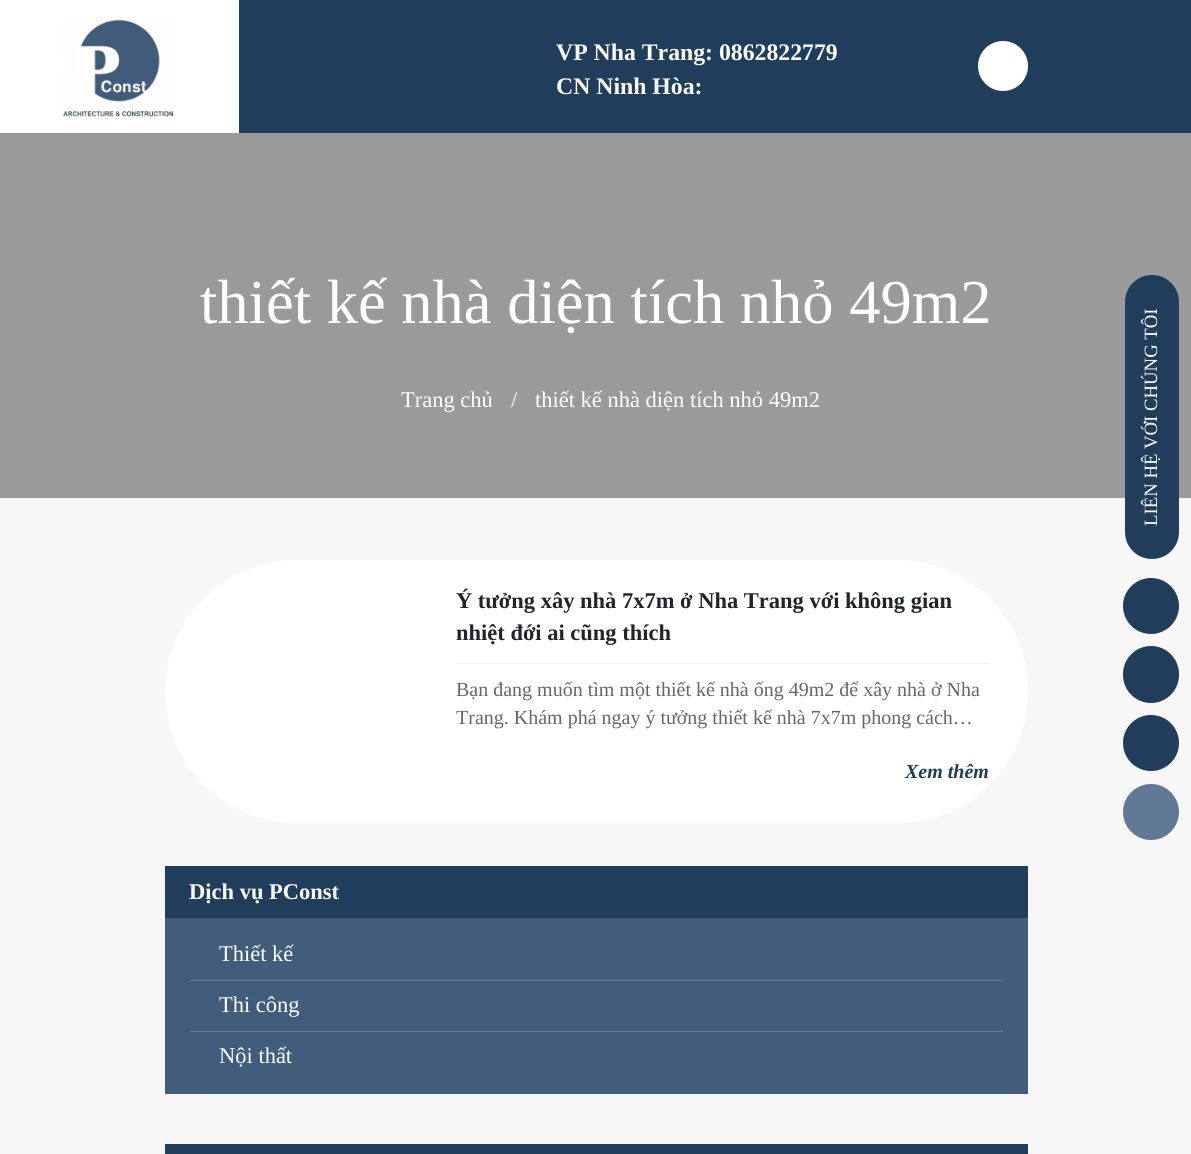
#include <cairo/cairo.h>
#include <math.h>
#include <stddef.h>

static cairo_t *cr;

static void use_color(int r, int g, int b) {
  cairo_set_source_rgb(cr, r / 255.0, g / 255.0, b / 255.0);
}

static void text(double x, double y, const char *s, const char *family, double size, int italic, int bold, int r, int g, int b) {
  cairo_select_font_face(cr, family, italic ? CAIRO_FONT_SLANT_ITALIC : CAIRO_FONT_SLANT_NORMAL,
    bold ? CAIRO_FONT_WEIGHT_BOLD : CAIRO_FONT_WEIGHT_NORMAL);
  cairo_set_font_size(cr, size);
  use_color(r, g, b);
  cairo_move_to(cr, x, y);
  cairo_show_text(cr, s);
}

static void box(double x, double y, double w, double h, int r, int g, int b) {
  use_color(r, g, b);
  cairo_rectangle(cr, x, y, w, h);
  cairo_fill(cr);
}

static void round_rect(double x, double y, double w, double h, double r) {
  cairo_new_sub_path(cr);
  cairo_arc(cr, x + w - r, y + h - r, r, 0, M_PI / 2);
  cairo_arc(cr, x + r, y + h - r, r, M_PI / 2, M_PI);
  cairo_arc(cr, x + r, y + r, r, M_PI, 1.5 * M_PI);
  cairo_arc(cr, x + w - r, y + r, r, 1.5 * M_PI, 2 * M_PI);
  cairo_close_path(cr);
}

static void picture(const char *path, double x, double y, double w, double h) {
  cairo_surface_t *image = cairo_image_surface_create_from_png(path);
  cairo_save(cr);
  cairo_set_source_surface(cr, image, x, y);
  cairo_rectangle(cr, x, y, w, h);
  cairo_fill(cr);
  cairo_restore(cr);
  cairo_surface_destroy(image);
}

static void draw(void) {
  use_color(154, 154, 154);
  cairo_paint(cr);
  box(239, 0, 952, 133, 33, 61, 92);
  box(0, 0, 239, 133, 255, 255, 255);
  picture("img_01.png", 63, 19, 111, 98);
  cairo_arc(cr, 1003, 66, 25, 0, 2 * M_PI);
  cairo_fill(cr);
  box(0, 498, 1191, 656, 247, 247, 247);
  use_color(33, 61, 92);
  cairo_new_path(cr);
  cairo_move_to(cr, 1125, 532);
  cairo_line_to(cr, 1125, 302);
  cairo_curve_to(cr, 1125, 287, 1137, 275, 1152, 275);
  cairo_curve_to(cr, 1167, 275, 1179, 287, 1179, 302);
  cairo_line_to(cr, 1179, 532);
  cairo_curve_to(cr, 1179, 547, 1167, 559, 1152, 559);
  cairo_curve_to(cr, 1137, 559, 1125, 547, 1125, 532);
  cairo_close_path(cr);
  cairo_fill(cr);
  cairo_arc(cr, 1151, 606, 28, 0, 2 * M_PI);
  cairo_fill(cr);
  round_rect(1123, 646, 56, 57, 28);
  cairo_fill(cr);
  cairo_arc(cr, 1151, 743, 28, 0, 2 * M_PI);
  cairo_fill(cr);
  use_color(96, 122, 150);
  cairo_arc(cr, 1151, 812, 28, 0, 2 * M_PI);
  cairo_fill(cr);
  use_color(255, 255, 255);
  round_rect(165, 560, 863, 263, 131.5);
  cairo_fill(cr);
  box(456, 663, 533, 1, 240, 240, 240);
  box(165, 866, 863, 52, 33, 61, 92);
  box(165, 918, 863, 176, 66, 93, 123);
  box(190, 980, 813, 1, 104, 125, 149);
  box(190, 1031, 813, 1, 104, 125, 149);
  box(165, 1144, 863, 10, 33, 61, 92);
  text(556, 60, "VP Nha Trang: 0862822779", "Liberation Serif", 23.75, 0, 1, 255, 255, 255);
  text(556, 94, "CN Ninh Hòa:", "Liberation Serif", 23.75, 0, 1, 255, 255, 255);
  text(200, 323, "thiết kế nhà diện tích nhỏ 49m2", "Liberation Serif", 62.5, 0, 0, 255, 255, 255);
  text(401, 407, "Trang chủ", "Liberation Serif", 22.5, 0, 0, 255, 255, 255);
  text(511, 407, "/", "Liberation Serif", 22.5, 0, 0, 255, 255, 255);
  text(535, 407, "thiết kế nhà diện tích nhỏ 49m2", "Liberation Serif", 22.5, 0, 0, 255, 255, 255);
  cairo_save(cr);
  cairo_translate(cr, 1157, 449);
  cairo_rotate(cr, -90 * M_PI / 180);
  text(0, 0, "VỚI CHÚNG TÔI", "Liberation Serif", 18.75, 0, 0, 255, 255, 255);
  cairo_restore(cr);
  cairo_save(cr);
  cairo_translate(cr, 1157, 526);
  cairo_rotate(cr, -90 * M_PI / 180);
  text(0, 0, "LIÊN HỆ", "Liberation Serif", 18.75, 0, 0, 255, 255, 255);
  cairo_restore(cr);
  text(456, 608, "Ý tưởng xây nhà 7x7m ở Nha Trang với không gian", "Liberation Serif", 22.5, 0, 1, 33, 37, 41);
  text(456, 640, "nhiệt đới ai cũng thích", "Liberation Serif", 22.5, 0, 1, 33, 37, 41);
  text(456, 696, "Bạn đang muốn tìm một thiết kế nhà ống 49m2 để xây nhà ở Nha", "Liberation Serif", 20, 0, 0, 102, 102, 102);
  text(456, 724, "Trang. Khám phá ngay ý tưởng thiết kế nhà 7x7m phong cách…", "Liberation Serif", 20, 0, 0, 102, 102, 102);
  text(905, 778, "Xem thêm", "Liberation Serif", 20, 1, 1, 33, 61, 92);
  text(189, 899, "Dịch vụ PConst", "Liberation Serif", 22.5, 0, 1, 255, 255, 255);
  text(219, 961, "Thiết kế", "Liberation Serif", 22.5, 0, 0, 255, 255, 255);
  text(219, 1012, "Thi công", "Liberation Serif", 22.5, 0, 0, 255, 255, 255);
  text(219, 1063, "Nội thất", "Liberation Serif", 22.5, 0, 0, 255, 255, 255);
}

int main(void) {
  cairo_surface_t *surface = cairo_image_surface_create(CAIRO_FORMAT_RGB24, 1191, 1154);
  cr = cairo_create(surface);
  cairo_font_options_t *options = cairo_font_options_create();
  cairo_font_options_set_hint_metrics(options, CAIRO_HINT_METRICS_OFF);
  cairo_font_options_set_hint_style(options, CAIRO_HINT_STYLE_NONE);
  cairo_set_font_options(cr, options);
  cairo_set_miter_limit(cr, 4);
  draw();
  cairo_surface_write_to_png(surface, "out.png");
  cairo_font_options_destroy(options);
  cairo_destroy(cr);
  cairo_surface_destroy(surface);
  return 0;
}
